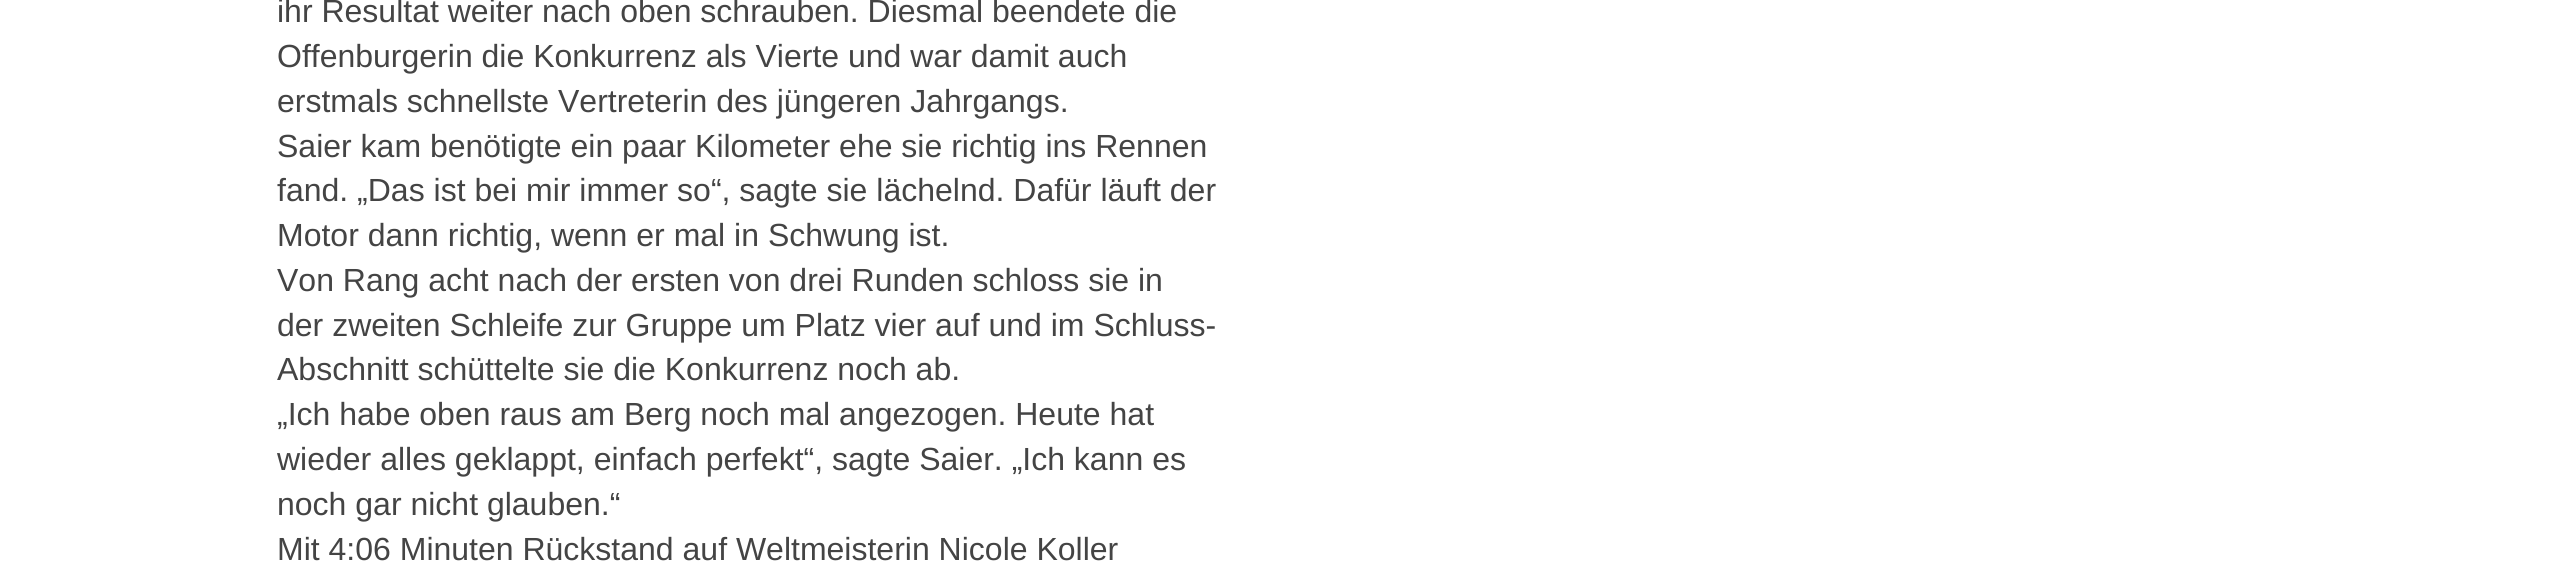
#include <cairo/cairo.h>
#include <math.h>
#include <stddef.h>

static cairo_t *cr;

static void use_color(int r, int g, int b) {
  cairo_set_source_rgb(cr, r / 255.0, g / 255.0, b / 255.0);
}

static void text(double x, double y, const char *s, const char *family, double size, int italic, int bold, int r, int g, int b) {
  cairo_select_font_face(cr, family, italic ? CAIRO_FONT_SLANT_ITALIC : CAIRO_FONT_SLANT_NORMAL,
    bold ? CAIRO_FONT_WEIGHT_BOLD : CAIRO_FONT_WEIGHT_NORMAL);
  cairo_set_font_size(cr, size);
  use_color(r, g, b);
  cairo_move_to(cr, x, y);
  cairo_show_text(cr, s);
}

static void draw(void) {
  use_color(255, 255, 255);
  cairo_paint(cr);
  text(277, 22, "ihr Resultat weiter nach oben schrauben. Diesmal beendete die", "Liberation Sans", 32, 0, 0, 68, 68, 68);
  text(277, 67, "Offenburgerin die Konkurrenz als Vierte und war damit auch", "Liberation Sans", 32, 0, 0, 68, 68, 68);
  text(277, 112, "erstmals schnellste Vertreterin des jüngeren Jahrgangs.", "Liberation Sans", 32, 0, 0, 68, 68, 68);
  text(277, 157, "Saier kam benötigte ein paar Kilometer ehe sie richtig ins Rennen", "Liberation Sans", 32, 0, 0, 68, 68, 68);
  text(277, 201, "fand. „Das ist bei mir immer so“, sagte sie lächelnd. Dafür läuft der", "Liberation Sans", 32, 0, 0, 68, 68, 68);
  text(277, 246, "Motor dann richtig, wenn er mal in Schwung ist.", "Liberation Sans", 32, 0, 0, 68, 68, 68);
  text(277, 291, "Von Rang acht nach der ersten von drei Runden schloss sie in", "Liberation Sans", 32, 0, 0, 68, 68, 68);
  text(277, 336, "der zweiten Schleife zur Gruppe um Platz vier auf und im Schluss-", "Liberation Sans", 32, 0, 0, 68, 68, 68);
  text(277, 380, "Abschnitt schüttelte sie die Konkurrenz noch ab.", "Liberation Sans", 32, 0, 0, 68, 68, 68);
  text(277, 425, "„Ich habe oben raus am Berg noch mal angezogen. Heute hat", "Liberation Sans", 32, 0, 0, 68, 68, 68);
  text(277, 470, "wieder alles geklappt, einfach perfekt“, sagte Saier. „Ich kann es", "Liberation Sans", 32, 0, 0, 68, 68, 68);
  text(277, 515, "noch gar nicht glauben.“", "Liberation Sans", 32, 0, 0, 68, 68, 68);
  text(277, 560, "Mit 4:06 Minuten Rückstand auf Weltmeisterin Nicole Koller", "Liberation Sans", 32, 0, 0, 68, 68, 68);
}

int main(void) {
  cairo_surface_t *surface = cairo_image_surface_create(CAIRO_FORMAT_RGB24, 2553, 584);
  cr = cairo_create(surface);
  cairo_font_options_t *options = cairo_font_options_create();
  cairo_font_options_set_hint_metrics(options, CAIRO_HINT_METRICS_OFF);
  cairo_font_options_set_hint_style(options, CAIRO_HINT_STYLE_NONE);
  cairo_set_font_options(cr, options);
  cairo_set_miter_limit(cr, 4);
  draw();
  cairo_surface_write_to_png(surface, "out.png");
  cairo_font_options_destroy(options);
  cairo_destroy(cr);
  cairo_surface_destroy(surface);
  return 0;
}
